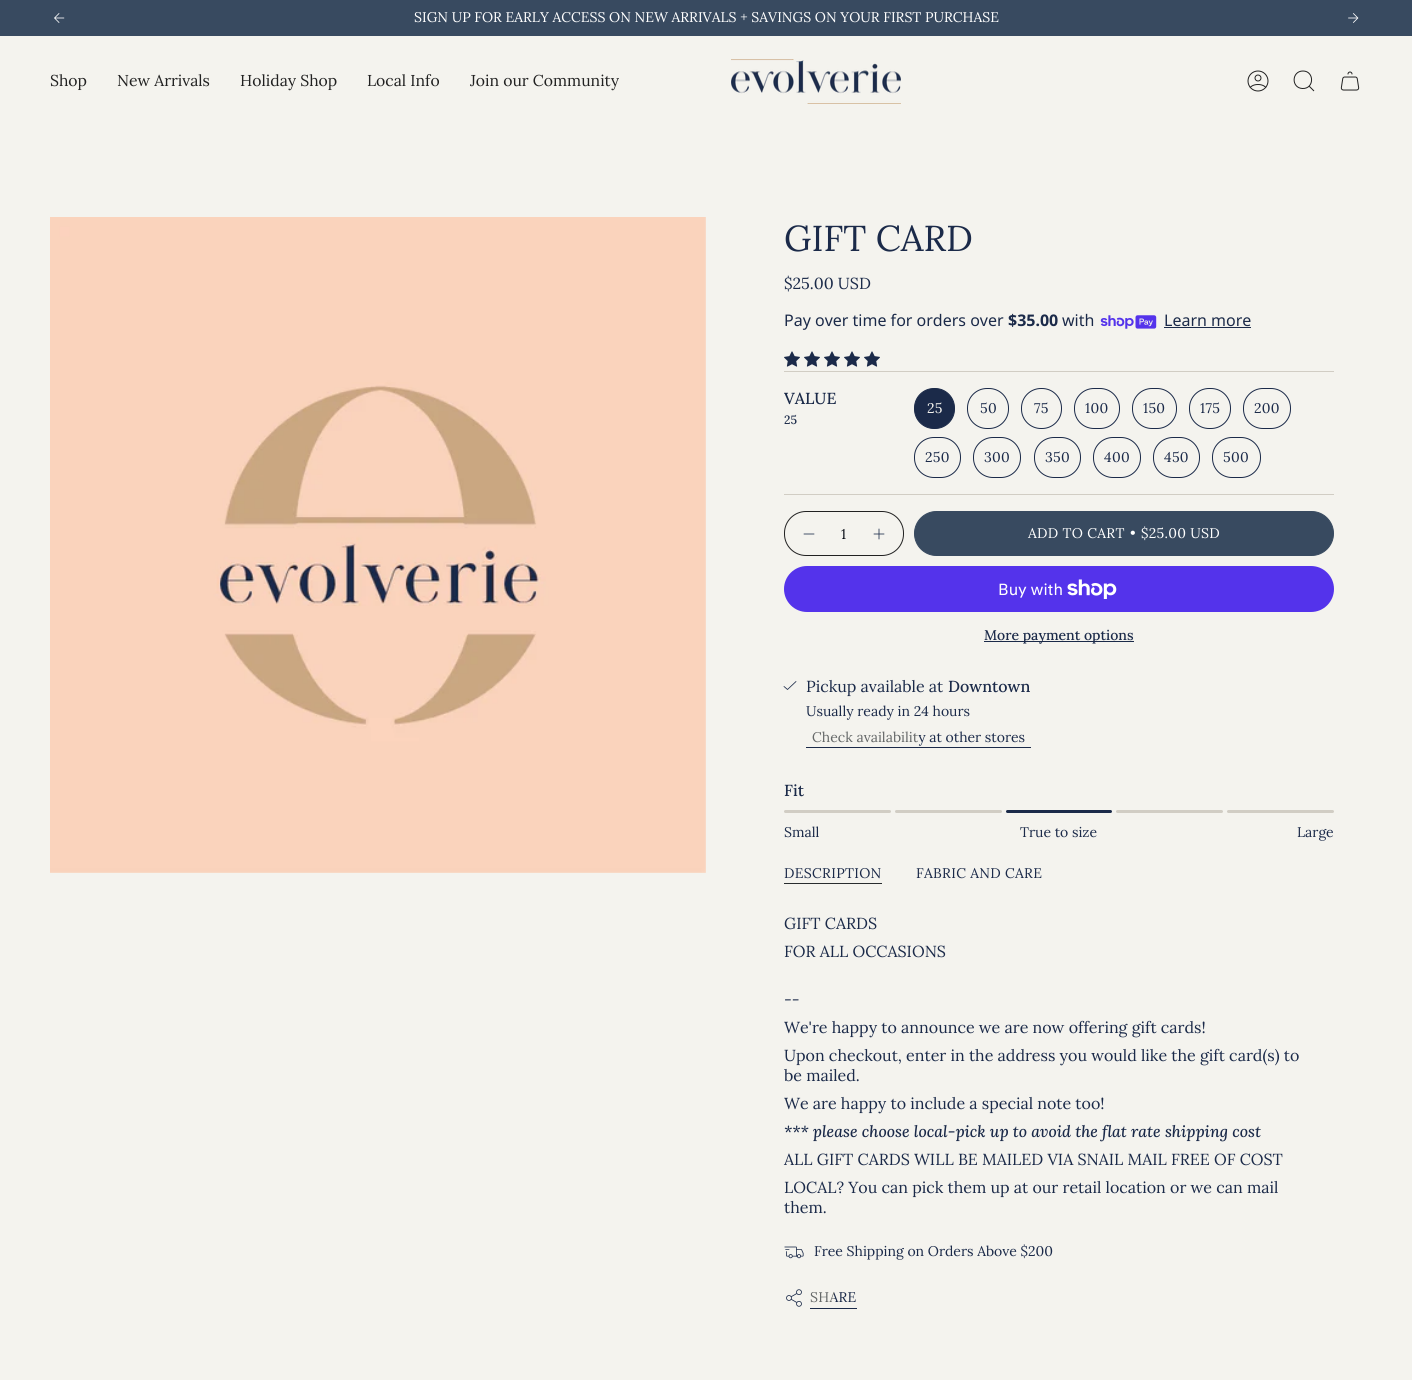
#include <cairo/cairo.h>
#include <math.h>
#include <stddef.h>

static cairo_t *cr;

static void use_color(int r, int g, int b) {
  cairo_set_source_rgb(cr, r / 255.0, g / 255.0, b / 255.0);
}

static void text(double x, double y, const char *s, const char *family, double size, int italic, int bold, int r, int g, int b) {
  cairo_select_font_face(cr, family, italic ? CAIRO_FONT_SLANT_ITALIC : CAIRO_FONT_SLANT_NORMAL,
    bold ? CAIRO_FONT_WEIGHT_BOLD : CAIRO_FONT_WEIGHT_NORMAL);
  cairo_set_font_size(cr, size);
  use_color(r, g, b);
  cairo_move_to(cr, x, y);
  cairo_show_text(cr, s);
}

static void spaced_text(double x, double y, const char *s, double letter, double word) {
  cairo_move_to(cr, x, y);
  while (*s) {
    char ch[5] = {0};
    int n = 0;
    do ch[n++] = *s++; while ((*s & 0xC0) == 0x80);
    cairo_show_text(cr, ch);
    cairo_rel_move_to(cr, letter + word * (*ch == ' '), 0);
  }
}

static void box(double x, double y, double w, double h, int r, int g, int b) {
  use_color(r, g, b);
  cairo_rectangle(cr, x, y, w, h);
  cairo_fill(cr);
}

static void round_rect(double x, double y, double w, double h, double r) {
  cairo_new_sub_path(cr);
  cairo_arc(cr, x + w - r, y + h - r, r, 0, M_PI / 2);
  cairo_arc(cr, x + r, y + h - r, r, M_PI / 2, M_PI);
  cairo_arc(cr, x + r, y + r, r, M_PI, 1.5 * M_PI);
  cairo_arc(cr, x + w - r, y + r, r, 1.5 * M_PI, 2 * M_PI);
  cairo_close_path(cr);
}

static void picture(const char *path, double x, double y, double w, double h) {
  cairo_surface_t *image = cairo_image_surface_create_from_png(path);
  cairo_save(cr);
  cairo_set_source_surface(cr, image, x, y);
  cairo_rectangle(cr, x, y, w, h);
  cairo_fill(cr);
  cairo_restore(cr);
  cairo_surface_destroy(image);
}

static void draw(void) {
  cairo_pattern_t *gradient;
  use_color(244, 243, 238);
  cairo_paint(cr);
  box(0, 0, 1412, 36, 56, 74, 96);
  picture("img_01.png", 54, 13, 11, 10);
  picture("img_02.png", 1348, 13, 11, 10);
  picture("img_03.png", 731, 59, 170, 45);
  picture("img_04.png", 1247, 70, 22, 22);
  cairo_new_path(cr);
  cairo_move_to(cr, 1303, 71);
  cairo_curve_to(cr, 1314.5, 71, 1314.5, 89, 1302.5, 88.5);
  cairo_curve_to(cr, 1291, 88, 1291.5, 71, 1303, 71);
  cairo_close_path(cr);
  cairo_move_to(cr, 1309, 86);
  cairo_line_to(cr, 1314, 91);
  use_color(33, 33, 33);
  cairo_set_line_width(cr, 1);
  cairo_stroke(cr);
  picture("img_05.png", 1340, 71, 20, 20);
  picture("img_06.png", 50, 217, 656, 656);
  picture("img_07.png", 1100, 315, 57, 14);
  box(1164, 327, 87, 1, 27, 42, 73);
  picture("img_08.png", 784, 351, 16, 16);
  picture("img_08.png", 804, 351, 16, 16);
  picture("img_08.png", 824, 351, 16, 16);
  picture("img_08.png", 844, 351, 16, 16);
  picture("img_08.png", 864, 351, 16, 16);
  box(784, 371, 550, 1, 209, 205, 196);
  box(784, 494, 550, 1, 209, 205, 196);
  use_color(27, 42, 73);
  round_rect(914.5, 388.5, 40, 40, 19.5);
  cairo_fill_preserve(cr);
  cairo_stroke(cr);
  round_rect(967.5, 388.5, 41, 40, 19.5);
  cairo_stroke(cr);
  round_rect(1021.5, 388.5, 40, 40, 19.5);
  cairo_stroke(cr);
  round_rect(1074.5, 388.5, 45, 40, 19.5);
  cairo_stroke(cr);
  round_rect(1132.5, 388.5, 44, 40, 19.5);
  cairo_stroke(cr);
  round_rect(1189.5, 388.5, 41, 40, 19.5);
  cairo_stroke(cr);
  round_rect(1243.5, 388.5, 47, 40, 19.5);
  cairo_stroke(cr);
  round_rect(914.5, 437.5, 46, 40, 19.5);
  cairo_stroke(cr);
  round_rect(973.5, 437.5, 47, 40, 19.5);
  cairo_stroke(cr);
  round_rect(1034.5, 437.5, 46, 40, 19.5);
  cairo_stroke(cr);
  round_rect(1093.5, 437.5, 47, 40, 19.5);
  cairo_stroke(cr);
  round_rect(1153.5, 437.5, 46, 40, 19.5);
  cairo_stroke(cr);
  round_rect(1212.5, 437.5, 48, 40, 19.5);
  cairo_stroke(cr);
  round_rect(784.5, 511.5, 119, 44, 21.5);
  use_color(33, 33, 33);
  cairo_stroke(cr);
  cairo_new_path(cr);
  cairo_move_to(cr, 804, 534);
  cairo_line_to(cr, 814, 534);
  use_color(27, 42, 73);
  cairo_set_line_width(cr, 0.8);
  cairo_set_line_cap(cr, CAIRO_LINE_CAP_ROUND);
  cairo_set_line_join(cr, CAIRO_LINE_JOIN_ROUND);
  cairo_stroke(cr);
  picture("img_09.png", 873, 528, 12, 12);
  use_color(56, 74, 96);
  round_rect(914.5, 511.5, 419, 44, 22);
  cairo_fill_preserve(cr);
  cairo_set_line_width(cr, 1);
  cairo_set_line_cap(cr, CAIRO_LINE_CAP_BUTT);
  cairo_set_line_join(cr, CAIRO_LINE_JOIN_MITER);
  cairo_stroke(cr);
  use_color(84, 51, 235);
  round_rect(784, 566, 550, 46, 23);
  cairo_fill(cr);
  picture("img_10.png", 1067, 579, 50, 20);
  box(984, 641, 150, 1, 27, 42, 73);
  cairo_new_path(cr);
  cairo_move_to(cr, 784, 686.5);
  cairo_line_to(cr, 787.5, 689.5);
  cairo_line_to(cr, 796, 681.5);
  cairo_set_line_width(cr, 0.8);
  cairo_set_line_cap(cr, CAIRO_LINE_CAP_ROUND);
  cairo_set_line_join(cr, CAIRO_LINE_JOIN_ROUND);
  cairo_stroke(cr);
  box(806, 747, 225, 1, 27, 42, 73);
  use_color(209, 205, 196);
  round_rect(784, 810, 107, 3, 1.5);
  cairo_fill(cr);
  round_rect(895, 810, 107, 3, 1.5);
  cairo_fill(cr);
  use_color(27, 42, 73);
  round_rect(1006, 810, 106, 3, 1.5);
  cairo_fill(cr);
  use_color(209, 205, 196);
  round_rect(1116, 810, 107, 3, 1.5);
  cairo_fill(cr);
  round_rect(1227, 810, 107, 3, 1.5);
  cairo_fill(cr);
  box(784, 883, 98, 1, 40, 44, 46);
  picture("img_11.png", 784, 1246, 20, 13);
  picture("img_12.png", 786, 1289, 16, 18);
  box(810, 1308, 47, 1, 27, 42, 73);
  text(414, 22, "SIGN UP FOR EARLY ACCESS ON NEW ARRIVALS + SAVINGS ON YOUR FIRST PURCHASE", "Lora", 14, 0, 0, 255, 255, 255);
  text(50, 86, "Shop", "Lora", 15.75, 0, 0, 33, 33, 33);
  text(117, 86, "New Arrivals", "Lora", 15.75, 0, 0, 33, 33, 33);
  text(240, 86, "Holiday Shop", "Lora", 15.75, 0, 0, 33, 33, 33);
  text(367, 86, "Local Info", "Lora", 15.75, 0, 0, 33, 33, 33);
  text(470, 86, "Join our Community", "Lora", 15.75, 0, 0, 33, 33, 33);
  text(784, 251, "GIFT CARD", "Lora", 36, 0, 0, 27, 42, 73);
  text(784, 289, "$25.00 USD", "Lora", 16, 0, 0, 27, 42, 73);
  text(784, 326, "Pay over time for orders over", "Noto Sans", 16, 0, 0, 27, 42, 73);
  text(1008, 326, "$35.00", "Noto Sans", 16, 0, 1, 27, 42, 73);
  text(1062, 326, "with", "Noto Sans", 16, 0, 0, 27, 42, 73);
  text(1164, 326, "Learn more", "Noto Sans", 16, 0, 0, 27, 42, 73);
  text(784, 404, "VALUE", "Lora Medium", 16, 0, 0, 27, 42, 73);
  text(784, 424, "25", "Lora Medium", 12, 0, 0, 27, 42, 73);
  cairo_select_font_face(cr, "Lora", CAIRO_FONT_SLANT_NORMAL, CAIRO_FONT_WEIGHT_NORMAL);
  cairo_set_font_size(cr, 14);
  use_color(244, 243, 238);
  spaced_text(927, 413, "25", 0.3, 0);
  use_color(27, 42, 73);
  spaced_text(980, 413, "50", 0.3, 0);
  spaced_text(1034, 413, "75", 0.3, 0);
  spaced_text(1085, 413, "100", 0.3, 0);
  spaced_text(1143, 413, "150", 0.3, 0);
  spaced_text(1200, 413, "175", 0.3, 0);
  spaced_text(1254, 413, "200", 0.3, 0);
  spaced_text(925, 462, "250", 0.3, 0);
  spaced_text(984, 462, "300", 0.3, 0);
  spaced_text(1045, 462, "350", 0.3, 0);
  spaced_text(1104, 462, "400", 0.3, 0);
  spaced_text(1164, 462, "450", 0.3, 0);
  spaced_text(1223, 462, "500", 0.3, 0);
  text(841, 539, "1", "Lora", 14, 0, 0, 5, 9, 18);
  use_color(255, 255, 255);
  spaced_text(1028, 538, "ADD TO CART", 0.3, 0);
  spaced_text(1130, 538, "•", 0.3, 0);
  spaced_text(1141, 538, "$25.00 USD", 0.3, 0);
  text(998, 595, "Buy with", "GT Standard", 16, 0, 0, 255, 255, 255);
  text(984, 640, "More payment options", "Lora Medium", 14, 0, 0, 27, 42, 73);
  text(806, 692, "Pickup available at", "Lora", 16, 0, 0, 27, 42, 73);
  text(948, 692, "Downtown", "Lora Medium", 16, 0, 0, 27, 42, 73);
  text(806, 716, "Usually ready in 24 hours", "Lora", 14, 0, 0, 27, 42, 73);
  gradient = cairo_pattern_create_linear(806, 737, 1031, 737);
  cairo_pattern_add_color_stop_rgba(gradient, 0, 0.396, 0.408, 0.408, 1);
  cairo_pattern_add_color_stop_rgba(gradient, 0.5, 0.396, 0.408, 0.408, 1);
  cairo_pattern_add_color_stop_rgba(gradient, 0.5, 0.106, 0.165, 0.286, 1);
  cairo_pattern_add_color_stop_rgba(gradient, 1, 0.106, 0.165, 0.286, 1);
  cairo_set_source(cr, gradient);
  cairo_pattern_destroy(gradient);
  cairo_move_to(cr, 812, 742);
  cairo_show_text(cr, "Check availability at other stores");
  text(784, 796, "Fit", "Lora Medium", 16, 0, 0, 27, 42, 73);
  text(784, 837, "Small", "Lora", 14, 0, 0, 27, 42, 73);
  text(1020, 837, "True to size", "Lora", 14, 0, 0, 27, 42, 73);
  text(1297, 837, "Large", "Lora", 14, 0, 0, 27, 42, 73);
  spaced_text(784, 878, "DESCRIPTION", 0.3, 0);
  spaced_text(916, 878, "FABRIC AND CARE", 0.3, 0);
  text(784, 929, "GIFT CARDS", "Lora", 16, 0, 0, 27, 42, 73);
  text(784, 957, "FOR ALL OCCASIONS", "Lora", 16, 0, 0, 27, 42, 73);
  text(784, 1005, "--", "Lora", 16, 0, 0, 27, 42, 73);
  text(784, 1033, "We're happy to announce we are now offering gift cards!", "Lora", 16, 0, 0, 27, 42, 73);
  text(784, 1061, "Upon checkout, enter in the address you would like the gift card(s) to", "Lora", 16, 0, 0, 27, 42, 73);
  text(784, 1081, "be mailed.", "Lora", 16, 0, 0, 27, 42, 73);
  text(784, 1109, "We are happy to include a special note too!", "Lora", 16, 0, 0, 27, 42, 73);
  text(784, 1137, "*** please choose local-pick up to avoid the flat rate shipping cost", "Lora Medium", 16, 1, 0, 27, 42, 73);
  text(784, 1165, "ALL GIFT CARDS WILL BE MAILED VIA SNAIL MAIL FREE OF COST", "Lora", 16, 0, 0, 27, 42, 73);
  text(784, 1193, "LOCAL? You can pick them up at our retail location or we can mail", "Lora", 16, 0, 0, 27, 42, 73);
  text(784, 1213, "them.", "Lora", 16, 0, 0, 27, 42, 73);
  text(814, 1256, "Free Shipping on Orders Above $200", "Lora", 14, 0, 0, 27, 42, 73);
  gradient = cairo_pattern_create_linear(810, 1298, 857, 1298);
  cairo_pattern_add_color_stop_rgba(gradient, 0, 0.396, 0.408, 0.408, 1);
  cairo_pattern_add_color_stop_rgba(gradient, 0.5, 0.396, 0.408, 0.408, 1);
  cairo_pattern_add_color_stop_rgba(gradient, 0.5, 0.106, 0.165, 0.286, 1);
  cairo_pattern_add_color_stop_rgba(gradient, 1, 0.106, 0.165, 0.286, 1);
  cairo_set_source(cr, gradient);
  cairo_pattern_destroy(gradient);
  spaced_text(810, 1302, "SHARE", 0.3, 0);
}

int main(void) {
  cairo_surface_t *surface = cairo_image_surface_create(CAIRO_FORMAT_RGB24, 1412, 1380);
  cr = cairo_create(surface);
  cairo_font_options_t *options = cairo_font_options_create();
  cairo_font_options_set_hint_metrics(options, CAIRO_HINT_METRICS_OFF);
  cairo_font_options_set_hint_style(options, CAIRO_HINT_STYLE_NONE);
  cairo_set_font_options(cr, options);
  cairo_set_miter_limit(cr, 4);
  draw();
  cairo_surface_write_to_png(surface, "out.png");
  cairo_font_options_destroy(options);
  cairo_destroy(cr);
  cairo_surface_destroy(surface);
  return 0;
}
